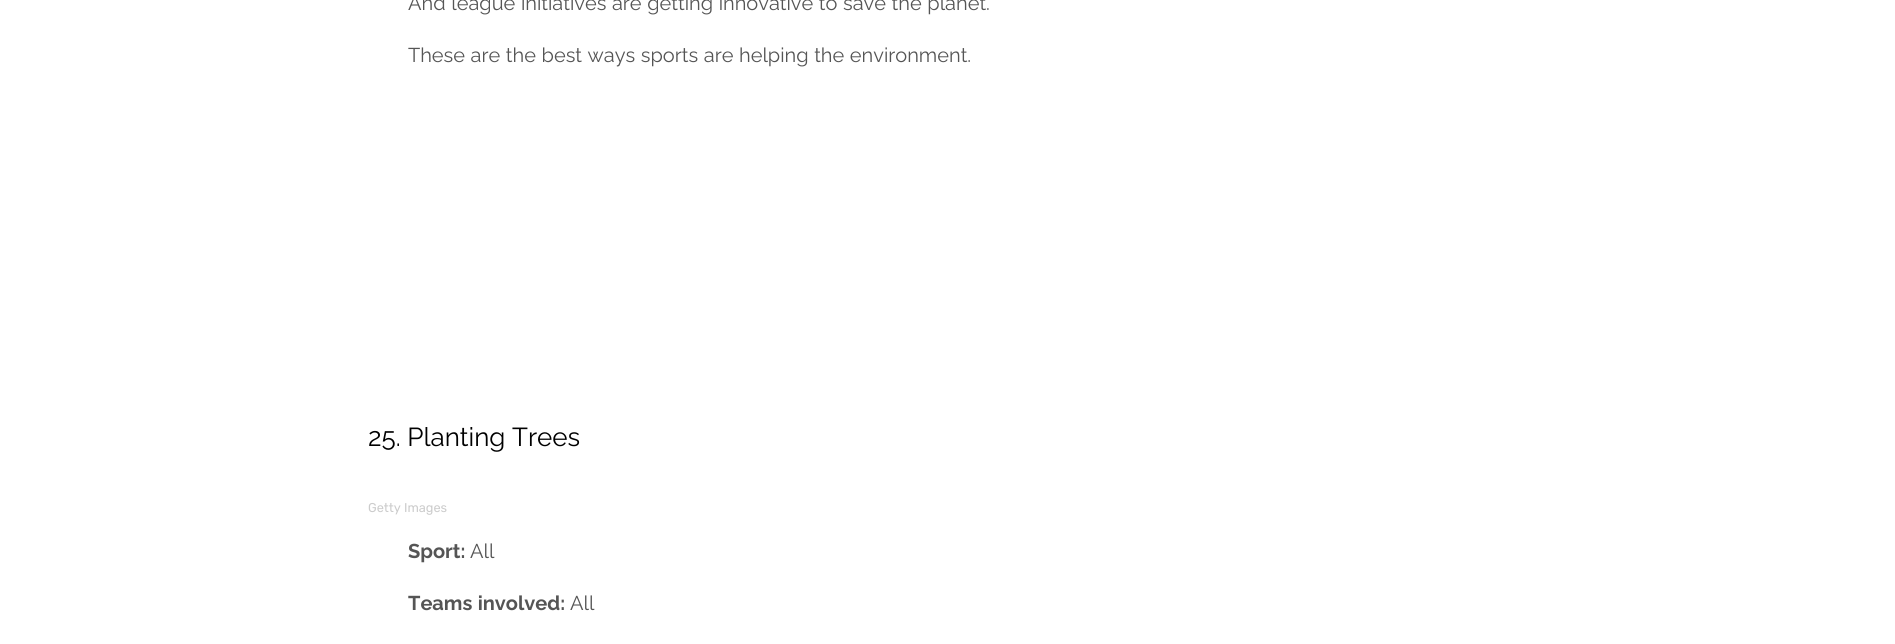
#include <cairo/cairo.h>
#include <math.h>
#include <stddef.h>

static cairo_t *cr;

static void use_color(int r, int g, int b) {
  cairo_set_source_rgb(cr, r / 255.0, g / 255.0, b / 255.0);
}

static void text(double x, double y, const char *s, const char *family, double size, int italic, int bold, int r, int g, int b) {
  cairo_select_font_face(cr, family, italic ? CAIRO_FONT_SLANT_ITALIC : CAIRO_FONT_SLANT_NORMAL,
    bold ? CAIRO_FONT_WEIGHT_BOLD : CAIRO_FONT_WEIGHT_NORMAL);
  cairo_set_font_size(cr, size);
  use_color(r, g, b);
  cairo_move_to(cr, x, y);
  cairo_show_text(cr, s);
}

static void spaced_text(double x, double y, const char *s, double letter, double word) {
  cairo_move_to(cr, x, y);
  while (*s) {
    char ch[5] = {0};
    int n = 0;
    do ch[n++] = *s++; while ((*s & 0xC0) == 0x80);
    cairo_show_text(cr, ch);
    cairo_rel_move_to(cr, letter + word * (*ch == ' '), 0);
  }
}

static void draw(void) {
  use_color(255, 255, 255);
  cairo_paint(cr);
  cairo_select_font_face(cr, "Raleway", CAIRO_FONT_SLANT_NORMAL, CAIRO_FONT_WEIGHT_NORMAL);
  cairo_set_font_size(cr, 20);
  use_color(85, 85, 85);
  spaced_text(408, 10, "And league initiatives are getting innovative to save the planet.", 0, 0.5);
  spaced_text(408, 62, "These are the best ways sports are helping the environment.", 0, 0.5);
  text(368, 446, "25. Planting Trees", "Raleway", 26, 0, 0, 0, 0, 0);
  text(368, 512, "Getty Images", "Rubik", 12.75, 0, 0, 204, 204, 204);
  text(408, 558, "Sport:", "Raleway", 20, 0, 1, 85, 85, 85);
  text(470, 558, "All", "Raleway", 20, 0, 0, 85, 85, 85);
  cairo_select_font_face(cr, "Raleway", CAIRO_FONT_SLANT_NORMAL, CAIRO_FONT_WEIGHT_BOLD);
  spaced_text(408, 610, "Teams involved:", 0, 0.5);
  text(570, 610, "All", "Raleway", 20, 0, 0, 85, 85, 85);
}

int main(void) {
  cairo_surface_t *surface = cairo_image_surface_create(CAIRO_FORMAT_RGB24, 1895, 644);
  cr = cairo_create(surface);
  cairo_font_options_t *options = cairo_font_options_create();
  cairo_font_options_set_hint_metrics(options, CAIRO_HINT_METRICS_OFF);
  cairo_font_options_set_hint_style(options, CAIRO_HINT_STYLE_NONE);
  cairo_set_font_options(cr, options);
  cairo_set_miter_limit(cr, 4);
  draw();
  cairo_surface_write_to_png(surface, "out.png");
  cairo_font_options_destroy(options);
  cairo_destroy(cr);
  cairo_surface_destroy(surface);
  return 0;
}
